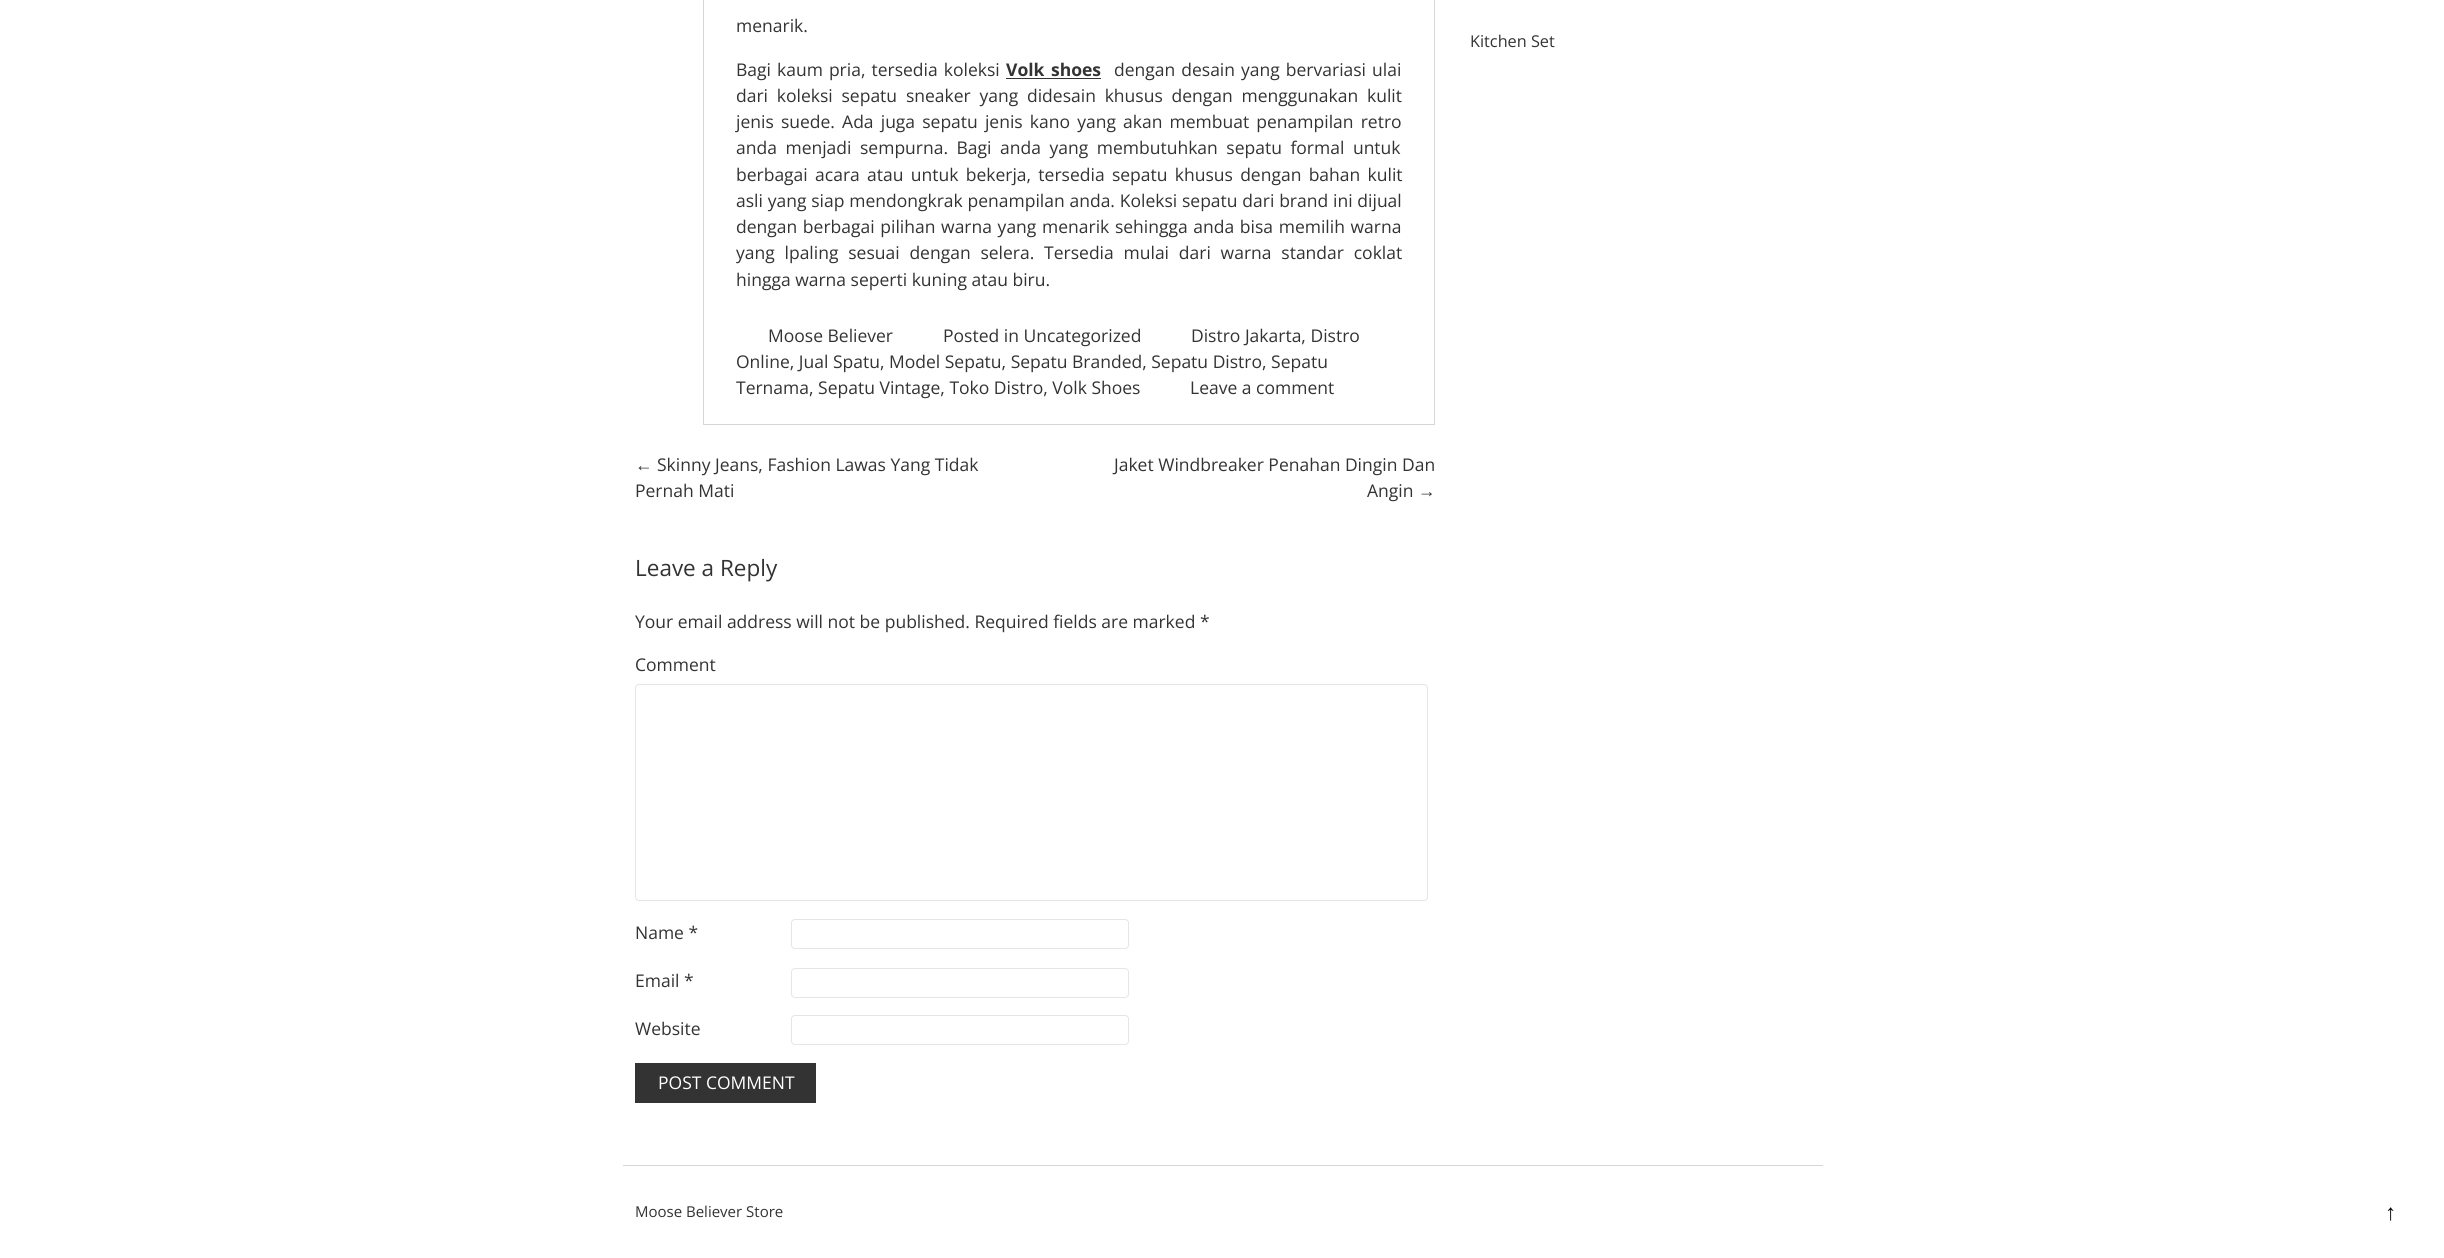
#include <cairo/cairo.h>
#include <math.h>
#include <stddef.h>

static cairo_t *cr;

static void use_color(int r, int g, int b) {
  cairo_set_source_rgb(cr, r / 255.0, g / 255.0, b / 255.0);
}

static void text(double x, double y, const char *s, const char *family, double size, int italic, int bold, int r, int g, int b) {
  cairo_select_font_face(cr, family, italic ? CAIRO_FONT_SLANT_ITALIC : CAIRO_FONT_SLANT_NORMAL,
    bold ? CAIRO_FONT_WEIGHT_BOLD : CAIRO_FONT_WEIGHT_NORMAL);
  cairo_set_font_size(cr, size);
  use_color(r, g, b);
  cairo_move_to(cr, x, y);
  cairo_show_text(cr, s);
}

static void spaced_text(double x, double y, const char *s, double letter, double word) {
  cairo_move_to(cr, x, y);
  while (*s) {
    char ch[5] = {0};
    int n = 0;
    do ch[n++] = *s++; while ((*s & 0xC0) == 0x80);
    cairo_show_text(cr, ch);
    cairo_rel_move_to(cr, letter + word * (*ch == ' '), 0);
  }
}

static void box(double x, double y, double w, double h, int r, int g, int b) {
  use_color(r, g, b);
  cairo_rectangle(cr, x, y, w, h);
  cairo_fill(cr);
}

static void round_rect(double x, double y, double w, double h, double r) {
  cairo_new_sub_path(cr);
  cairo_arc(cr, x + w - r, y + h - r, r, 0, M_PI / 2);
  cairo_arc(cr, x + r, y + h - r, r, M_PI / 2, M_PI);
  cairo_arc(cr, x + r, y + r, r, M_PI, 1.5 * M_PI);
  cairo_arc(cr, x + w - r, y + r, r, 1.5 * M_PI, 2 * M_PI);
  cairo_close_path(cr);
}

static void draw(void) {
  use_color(255, 255, 255);
  cairo_paint(cr);
  cairo_rectangle(cr, 703.5, -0.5, 731, 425);
  use_color(214, 214, 214);
  cairo_set_line_width(cr, 1);
  cairo_stroke(cr);
  box(1006, 78, 95, 1, 51, 51, 51);
  round_rect(635.5, 684.5, 792, 216, 3.5);
  use_color(229, 229, 229);
  cairo_stroke(cr);
  round_rect(791.5, 919.5, 337, 29, 3.5);
  cairo_stroke(cr);
  round_rect(791.5, 968.5, 337, 29, 3.5);
  cairo_stroke(cr);
  round_rect(791.5, 1015.5, 337, 29, 3.5);
  cairo_stroke(cr);
  box(635, 1063, 181, 40, 51, 51, 51);
  box(623, 1165, 1200, 1, 214, 214, 214);
  text(736, 32, "menarik.", "Open Sans", 17.5, 0, 0, 51, 51, 51);
  spaced_text(736, 76, "Bagi kaum pria, tersedia koleksi", 0, 1.5);
  cairo_select_font_face(cr, "Open Sans", CAIRO_FONT_SLANT_NORMAL, CAIRO_FONT_WEIGHT_BOLD);
  spaced_text(1006, 76, "Volk shoes", 0, 2);
  cairo_select_font_face(cr, "Open Sans", CAIRO_FONT_SLANT_NORMAL, CAIRO_FONT_WEIGHT_NORMAL);
  spaced_text(1114, 76, "dengan desain yang bervariasi ulai", 0, 1.5);
  spaced_text(736, 102, "dari koleksi sepatu sneaker yang didesain khusus dengan menggunakan kulit", 0, 4.25);
  spaced_text(736, 128, "jenis suede. Ada juga sepatu jenis kano yang akan membuat penampilan retro", 0, 2.6);
  spaced_text(736, 154, "anda menjadi sempurna. Bagi anda yang membutuhkan sepatu formal untuk", 0, 4);
  spaced_text(736, 181, "berbagai acara atau untuk bekerja, tersedia sepatu khusus dengan bahan kulit", 0, 2.75);
  spaced_text(736, 207, "asli yang siap mendongkrak penampilan anda. Koleksi sepatu dari brand ini dijual", 0, 0.25);
  spaced_text(736, 233, "dengan berbagai pilihan warna yang menarik sehingga anda bisa memilih warna", 0, 1.1);
  spaced_text(736, 259, "yang lpaling sesuai dengan selera. Tersedia mulai dari warna standar coklat", 0, 5.25);
  text(736, 286, "hingga warna seperti kuning atau biru.", "Open Sans", 17.5, 0, 0, 51, 51, 51);
  text(768, 342, "Moose Believer", "Open Sans", 17.5, 0, 0, 51, 51, 51);
  text(943, 342, "Posted in Uncategorized", "Open Sans", 17.5, 0, 0, 51, 51, 51);
  text(1191, 342, "Distro Jakarta, Distro", "Open Sans", 17.5, 0, 0, 51, 51, 51);
  text(736, 368, "Online, Jual Spatu, Model Sepatu, Sepatu Branded, Sepatu Distro, Sepatu", "Open Sans", 17.5, 0, 0, 51, 51, 51);
  text(736, 394, "Ternama, Sepatu Vintage, Toko Distro, Volk Shoes", "Open Sans", 17.5, 0, 0, 51, 51, 51);
  text(1190, 394, "Leave a comment", "Open Sans", 17.5, 0, 0, 51, 51, 51);
  text(635, 471, "←", "Liberation Sans", 17.5, 0, 0, 51, 51, 51);
  text(657, 471, "Skinny Jeans, Fashion Lawas Yang Tidak", "Open Sans", 17.5, 0, 0, 51, 51, 51);
  text(635, 497, "Pernah Mati", "Open Sans", 17.5, 0, 0, 51, 51, 51);
  text(1114, 471, "Jaket Windbreaker Penahan Dingin Dan", "Open Sans", 17.5, 0, 0, 51, 51, 51);
  text(1367, 497, "Angin", "Open Sans", 17.5, 0, 0, 51, 51, 51);
  text(1418, 497, "→", "Liberation Sans", 17.5, 0, 0, 51, 51, 51);
  text(635, 576, "Leave a Reply", "Open Sans", 22.5, 0, 0, 51, 51, 51);
  text(635, 628, "Your email address will not be published. Required fields are marked *", "Open Sans", 17.5, 0, 0, 51, 51, 51);
  text(635, 671, "Comment", "Open Sans", 17.5, 0, 0, 51, 51, 51);
  text(635, 939, "Name *", "Open Sans", 17.5, 0, 0, 51, 51, 51);
  text(635, 987, "Email *", "Open Sans", 17.5, 0, 0, 51, 51, 51);
  text(635, 1035, "Website", "Open Sans", 17.5, 0, 0, 51, 51, 51);
  text(658, 1089, "POST COMMENT", "Open Sans", 17.5, 0, 0, 255, 255, 255);
  text(1470, 47, "Kitchen Set", "Open Sans", 16.25, 0, 0, 51, 51, 51);
  text(635, 1217, "Moose Believer Store", "Open Sans", 15, 0, 0, 51, 51, 51);
  text(2385, 1220, "↑", "Liberation Sans", 22.5, 0, 0, 7, 7, 7);
}

int main(void) {
  cairo_surface_t *surface = cairo_image_surface_create(CAIRO_FORMAT_RGB24, 2444, 1258);
  cr = cairo_create(surface);
  cairo_font_options_t *options = cairo_font_options_create();
  cairo_font_options_set_hint_metrics(options, CAIRO_HINT_METRICS_OFF);
  cairo_font_options_set_hint_style(options, CAIRO_HINT_STYLE_NONE);
  cairo_set_font_options(cr, options);
  cairo_set_miter_limit(cr, 4);
  draw();
  cairo_surface_write_to_png(surface, "out.png");
  cairo_font_options_destroy(options);
  cairo_destroy(cr);
  cairo_surface_destroy(surface);
  return 0;
}
